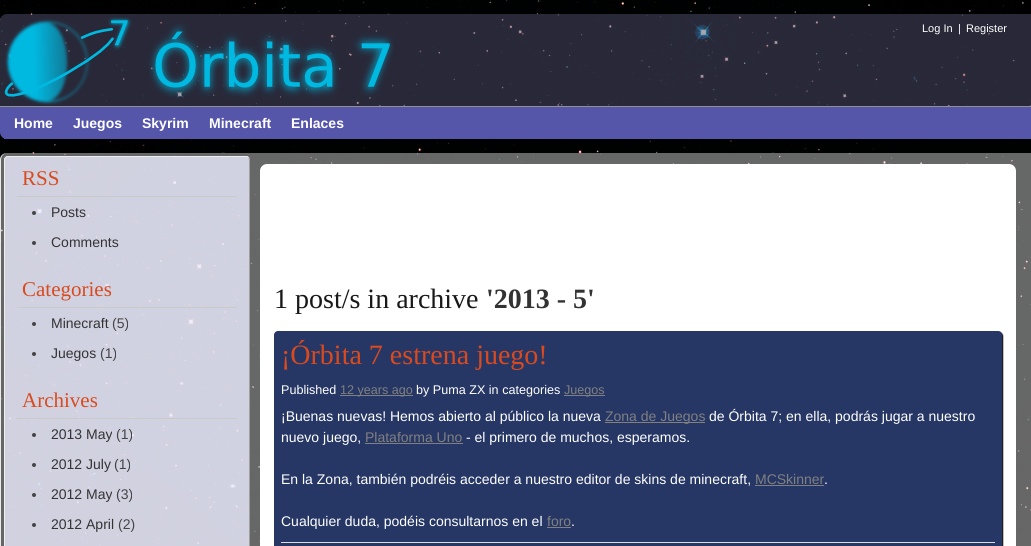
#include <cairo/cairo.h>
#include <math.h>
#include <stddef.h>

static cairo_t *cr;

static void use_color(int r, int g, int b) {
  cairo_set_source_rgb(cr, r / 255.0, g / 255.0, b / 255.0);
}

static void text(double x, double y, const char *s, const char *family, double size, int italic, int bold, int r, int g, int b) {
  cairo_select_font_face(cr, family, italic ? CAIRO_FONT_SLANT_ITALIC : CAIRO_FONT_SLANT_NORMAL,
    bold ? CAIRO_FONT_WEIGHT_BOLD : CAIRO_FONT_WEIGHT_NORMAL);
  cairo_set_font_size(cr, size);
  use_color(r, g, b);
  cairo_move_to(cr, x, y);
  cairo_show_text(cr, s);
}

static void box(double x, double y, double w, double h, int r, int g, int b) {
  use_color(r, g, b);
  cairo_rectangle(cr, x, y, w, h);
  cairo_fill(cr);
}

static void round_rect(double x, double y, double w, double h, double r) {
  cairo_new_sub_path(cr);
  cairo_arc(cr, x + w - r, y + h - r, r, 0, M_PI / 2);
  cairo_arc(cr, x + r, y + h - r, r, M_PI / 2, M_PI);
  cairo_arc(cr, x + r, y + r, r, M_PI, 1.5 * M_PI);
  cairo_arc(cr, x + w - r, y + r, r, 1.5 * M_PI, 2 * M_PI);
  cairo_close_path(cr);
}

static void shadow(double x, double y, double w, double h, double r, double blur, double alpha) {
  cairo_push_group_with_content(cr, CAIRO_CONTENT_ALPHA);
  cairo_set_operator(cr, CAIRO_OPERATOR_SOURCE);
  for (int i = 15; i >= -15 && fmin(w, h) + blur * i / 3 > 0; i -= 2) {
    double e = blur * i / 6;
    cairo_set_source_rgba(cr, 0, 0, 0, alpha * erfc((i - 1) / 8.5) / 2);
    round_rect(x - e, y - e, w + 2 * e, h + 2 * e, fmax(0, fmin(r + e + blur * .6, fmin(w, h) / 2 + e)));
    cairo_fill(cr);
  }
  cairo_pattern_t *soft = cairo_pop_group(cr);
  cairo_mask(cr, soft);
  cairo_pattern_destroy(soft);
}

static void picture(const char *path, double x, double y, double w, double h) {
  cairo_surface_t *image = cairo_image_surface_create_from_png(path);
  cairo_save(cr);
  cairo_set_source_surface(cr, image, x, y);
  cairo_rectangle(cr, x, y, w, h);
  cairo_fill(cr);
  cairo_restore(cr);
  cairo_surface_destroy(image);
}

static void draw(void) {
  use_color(255, 255, 255);
  cairo_paint(cr);
  picture("img_01.png", 0, 0, 1031, 546);
  cairo_set_source_rgba(cr, 0.314, 0.314, 0.439, 0.5);
  cairo_new_path(cr);
  cairo_move_to(cr, 7, 14);
  cairo_line_to(cr, 1031, 14);
  cairo_curve_to(cr, 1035, 14, 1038, 17, 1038, 21);
  cairo_line_to(cr, 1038, 106);
  cairo_line_to(cr, 0, 106);
  cairo_line_to(cr, 0, 21);
  cairo_curve_to(cr, 0, 17, 3, 14, 7, 14);
  cairo_close_path(cr);
  cairo_fill(cr);
  picture("img_02.png", 4, 17, 390, 88);
  use_color(0, 0, 0);
  shadow(3, 109, 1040, 33, 7, 1.5, 1);
  use_color(85, 85, 170);
  cairo_new_path(cr);
  cairo_move_to(cr, 0, 106);
  cairo_line_to(cr, 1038, 106);
  cairo_line_to(cr, 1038, 132);
  cairo_curve_to(cr, 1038, 136, 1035, 139, 1031, 139);
  cairo_line_to(cr, 7, 139);
  cairo_curve_to(cr, 3, 139, 0, 136, 0, 132);
  cairo_close_path(cr);
  cairo_fill(cr);
  box(0, 106, 1031, 1, 145, 145, 145);
  box(4, 138, 3, 1, 85, 85, 170);
  cairo_set_source_rgba(cr, 1, 1, 1, 0.4);
  round_rect(0, 153, 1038, 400, 7);
  cairo_fill(cr);
  use_color(234, 234, 234);
  cairo_set_fill_rule(cr, CAIRO_FILL_RULE_EVEN_ODD);
  cairo_new_path(cr);
  cairo_move_to(cr, 7, 153);
  cairo_line_to(cr, 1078, 153);
  cairo_curve_to(cr, 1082, 153, 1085, 156, 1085, 160);
  cairo_line_to(cr, 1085, 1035);
  cairo_curve_to(cr, 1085, 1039, 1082, 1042, 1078, 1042);
  cairo_line_to(cr, 7, 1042);
  cairo_curve_to(cr, 3, 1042, 0, 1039, 0, 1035);
  cairo_line_to(cr, 0, 160);
  cairo_curve_to(cr, 0, 156, 3, 153, 7, 153);
  cairo_close_path(cr);
  cairo_move_to(cr, 7, 153);
  cairo_line_to(cr, 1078, 153);
  cairo_curve_to(cr, 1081, 153, 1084, 156, 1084, 160);
  cairo_line_to(cr, 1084, 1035);
  cairo_curve_to(cr, 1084, 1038, 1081, 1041, 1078, 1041);
  cairo_line_to(cr, 7, 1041);
  cairo_curve_to(cr, 4, 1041, 1, 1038, 1, 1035);
  cairo_line_to(cr, 1, 160);
  cairo_curve_to(cr, 1, 156, 4, 153, 7, 153);
  cairo_close_path(cr);
  cairo_fill(cr);
  cairo_set_source_rgba(cr, 0.925, 0.925, 1, 0.8);
  round_rect(4, 156, 246, 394, 4);
  cairo_fill(cr);
  cairo_new_path(cr);
  cairo_move_to(cr, 248.5, 157.5);
  cairo_curve_to(cr, 249, 158, 249.5, 159, 249.5, 160);
  cairo_line_to(cr, 249.5, 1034);
  cairo_curve_to(cr, 249.5, 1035, 249, 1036, 248.5, 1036.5);
  cairo_curve_to(cr, 248, 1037, 247, 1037.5, 246, 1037.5);
  cairo_line_to(cr, 8, 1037.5);
  cairo_curve_to(cr, 7, 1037.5, 6, 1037, 5.5, 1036.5);
  use_color(159, 159, 159);
  cairo_set_line_width(cr, 1);
  cairo_stroke(cr);
  cairo_new_path(cr);
  cairo_move_to(cr, 5.5, 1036.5);
  cairo_curve_to(cr, 5, 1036, 4.5, 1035, 4.5, 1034);
  cairo_line_to(cr, 4.5, 160);
  cairo_curve_to(cr, 4.5, 159, 5, 158, 5.5, 157.5);
  cairo_curve_to(cr, 6, 157, 7, 156.5, 8, 156.5);
  cairo_line_to(cr, 246, 156.5);
  cairo_curve_to(cr, 247, 156.5, 248, 157, 248.5, 157.5);
  use_color(238, 238, 238);
  cairo_stroke(cr);
  box(17, 196, 220, 1, 202, 202, 202);
  use_color(68, 68, 68);
  cairo_arc(cr, 34, 213, 2, 0, 2 * M_PI);
  cairo_fill(cr);
  cairo_arc(cr, 34, 243, 2, 0, 2 * M_PI);
  cairo_fill(cr);
  box(17, 307, 220, 1, 202, 202, 202);
  use_color(68, 68, 68);
  cairo_arc(cr, 34, 324, 2, 0, 2 * M_PI);
  cairo_fill(cr);
  cairo_arc(cr, 34, 354, 2, 0, 2 * M_PI);
  cairo_fill(cr);
  box(17, 418, 220, 1, 202, 202, 202);
  use_color(68, 68, 68);
  cairo_arc(cr, 34, 435, 2, 0, 2 * M_PI);
  cairo_fill(cr);
  cairo_arc(cr, 34, 465, 2, 0, 2 * M_PI);
  cairo_fill(cr);
  cairo_arc(cr, 34, 495, 2, 0, 2 * M_PI);
  cairo_fill(cr);
  cairo_arc(cr, 34, 525, 2, 0, 2 * M_PI);
  cairo_fill(cr);
  use_color(255, 255, 255);
  round_rect(260, 164, 756, 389, 7);
  cairo_fill(cr);
  use_color(0, 0, 0);
  shadow(275, 332, 728, 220, 4, 0.5, 1);
  use_color(38, 55, 102);
  round_rect(274, 331, 728, 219, 4);
  cairo_fill(cr);
  box(340, 395, 73, 1, 128, 128, 128);
  box(564, 395, 41, 1, 128, 128, 128);
  box(605, 422, 100, 1, 128, 128, 128);
  box(365, 443, 98, 1, 128, 128, 128);
  box(755, 485, 69, 1, 128, 128, 128);
  box(547, 527, 24, 1, 128, 128, 128);
  box(281, 542, 714, 1, 221, 221, 221);
  text(922, 32, "Log In", "Liberation Sans", 11, 0, 0, 255, 255, 255);
  text(958, 32, "|", "Liberation Sans", 11, 0, 0, 255, 255, 255);
  text(966, 32, "Register", "Liberation Sans", 11, 0, 0, 255, 255, 255);
  text(14, 128, "Home", "Liberation Sans", 14, 0, 1, 255, 255, 255);
  text(73, 128, "Juegos", "Liberation Sans", 14, 0, 1, 255, 255, 255);
  text(142, 128, "Skyrim", "Liberation Sans", 14, 0, 1, 255, 255, 255);
  text(209, 128, "Minecraft", "Liberation Sans", 14, 0, 1, 255, 255, 255);
  text(291, 128, "Enlaces", "Liberation Sans", 14, 0, 1, 255, 255, 255);
  text(22, 185, "RSS", "Liberation Serif", 21, 0, 0, 217, 74, 30);
  text(51, 217, "Posts", "Liberation Sans", 14, 0, 0, 51, 51, 51);
  text(51, 247, "Comments", "Liberation Sans", 14, 0, 0, 51, 51, 51);
  text(22, 296, "Categories", "Liberation Serif", 21, 0, 0, 217, 74, 30);
  text(51, 328, "Minecraft", "Liberation Sans", 14, 0, 0, 51, 51, 51);
  text(112, 328, "(5)", "Liberation Sans", 14, 0, 0, 68, 68, 68);
  text(51, 358, "Juegos", "Liberation Sans", 14, 0, 0, 51, 51, 51);
  text(100, 358, "(1)", "Liberation Sans", 14, 0, 0, 68, 68, 68);
  text(22, 407, "Archives", "Liberation Serif", 21, 0, 0, 217, 74, 30);
  text(51, 439, "2013 May", "Liberation Sans", 14, 0, 0, 51, 51, 51);
  text(116, 439, "(1)", "Liberation Sans", 14, 0, 0, 68, 68, 68);
  text(51, 469, "2012 July", "Liberation Sans", 14, 0, 0, 51, 51, 51);
  text(114, 469, "(1)", "Liberation Sans", 14, 0, 0, 68, 68, 68);
  text(51, 499, "2012 May", "Liberation Sans", 14, 0, 0, 51, 51, 51);
  text(116, 499, "(3)", "Liberation Sans", 14, 0, 0, 68, 68, 68);
  text(51, 529, "2012 April", "Liberation Sans", 14, 0, 0, 51, 51, 51);
  text(118, 529, "(2)", "Liberation Sans", 14, 0, 0, 68, 68, 68);
  text(274, 308, "1 post/s in archive", "Liberation Serif", 28, 0, 0, 24, 24, 24);
  text(486, 308, "'2013 - 5'", "Liberation Serif", 28, 0, 1, 51, 51, 51);
  text(281, 364, "¡Órbita 7 estrena juego!", "Liberation Serif", 28, 0, 0, 217, 74, 30);
  text(281, 394, "Published", "Liberation Sans", 12.6, 0, 0, 255, 255, 255);
  text(340, 394, "12 years ago", "Liberation Sans", 12.6, 0, 0, 128, 128, 128);
  text(416, 394, "by Puma ZX in categories", "Liberation Sans", 12.6, 0, 0, 255, 255, 255);
  text(564, 394, "Juegos", "Liberation Sans", 12.6, 0, 0, 128, 128, 128);
  text(281, 421, "¡Buenas nuevas! Hemos abierto al público la nueva", "Liberation Sans", 14, 0, 0, 255, 255, 255);
  text(605, 421, "Zona de Juegos", "Liberation Sans", 14, 0, 0, 128, 128, 128);
  text(709, 421, "de Órbita 7; en ella, podrás jugar a nuestro", "Liberation Sans", 14, 0, 0, 255, 255, 255);
  text(281, 442, "nuevo juego,", "Liberation Sans", 14, 0, 0, 255, 255, 255);
  text(365, 442, "Plataforma Uno", "Liberation Sans", 14, 0, 0, 128, 128, 128);
  text(466, 442, "- el primero de muchos, esperamos.", "Liberation Sans", 14, 0, 0, 255, 255, 255);
  text(281, 484, "En la Zona, también podréis acceder a nuestro editor de skins de minecraft,", "Liberation Sans", 14, 0, 0, 255, 255, 255);
  text(755, 484, "MCSkinner", "Liberation Sans", 14, 0, 0, 128, 128, 128);
  text(824, 484, ".", "Liberation Sans", 14, 0, 0, 255, 255, 255);
  text(281, 526, "Cualquier duda, podéis consultarnos en el", "Liberation Sans", 14, 0, 0, 255, 255, 255);
  text(547, 526, "foro", "Liberation Sans", 14, 0, 0, 128, 128, 128);
  text(571, 526, ".", "Liberation Sans", 14, 0, 0, 255, 255, 255);
}

int main(void) {
  cairo_surface_t *surface = cairo_image_surface_create(CAIRO_FORMAT_RGB24, 1031, 546);
  cr = cairo_create(surface);
  cairo_font_options_t *options = cairo_font_options_create();
  cairo_font_options_set_hint_metrics(options, CAIRO_HINT_METRICS_OFF);
  cairo_font_options_set_hint_style(options, CAIRO_HINT_STYLE_NONE);
  cairo_set_font_options(cr, options);
  cairo_set_miter_limit(cr, 4);
  draw();
  cairo_surface_write_to_png(surface, "out.png");
  cairo_font_options_destroy(options);
  cairo_destroy(cr);
  cairo_surface_destroy(surface);
  return 0;
}
